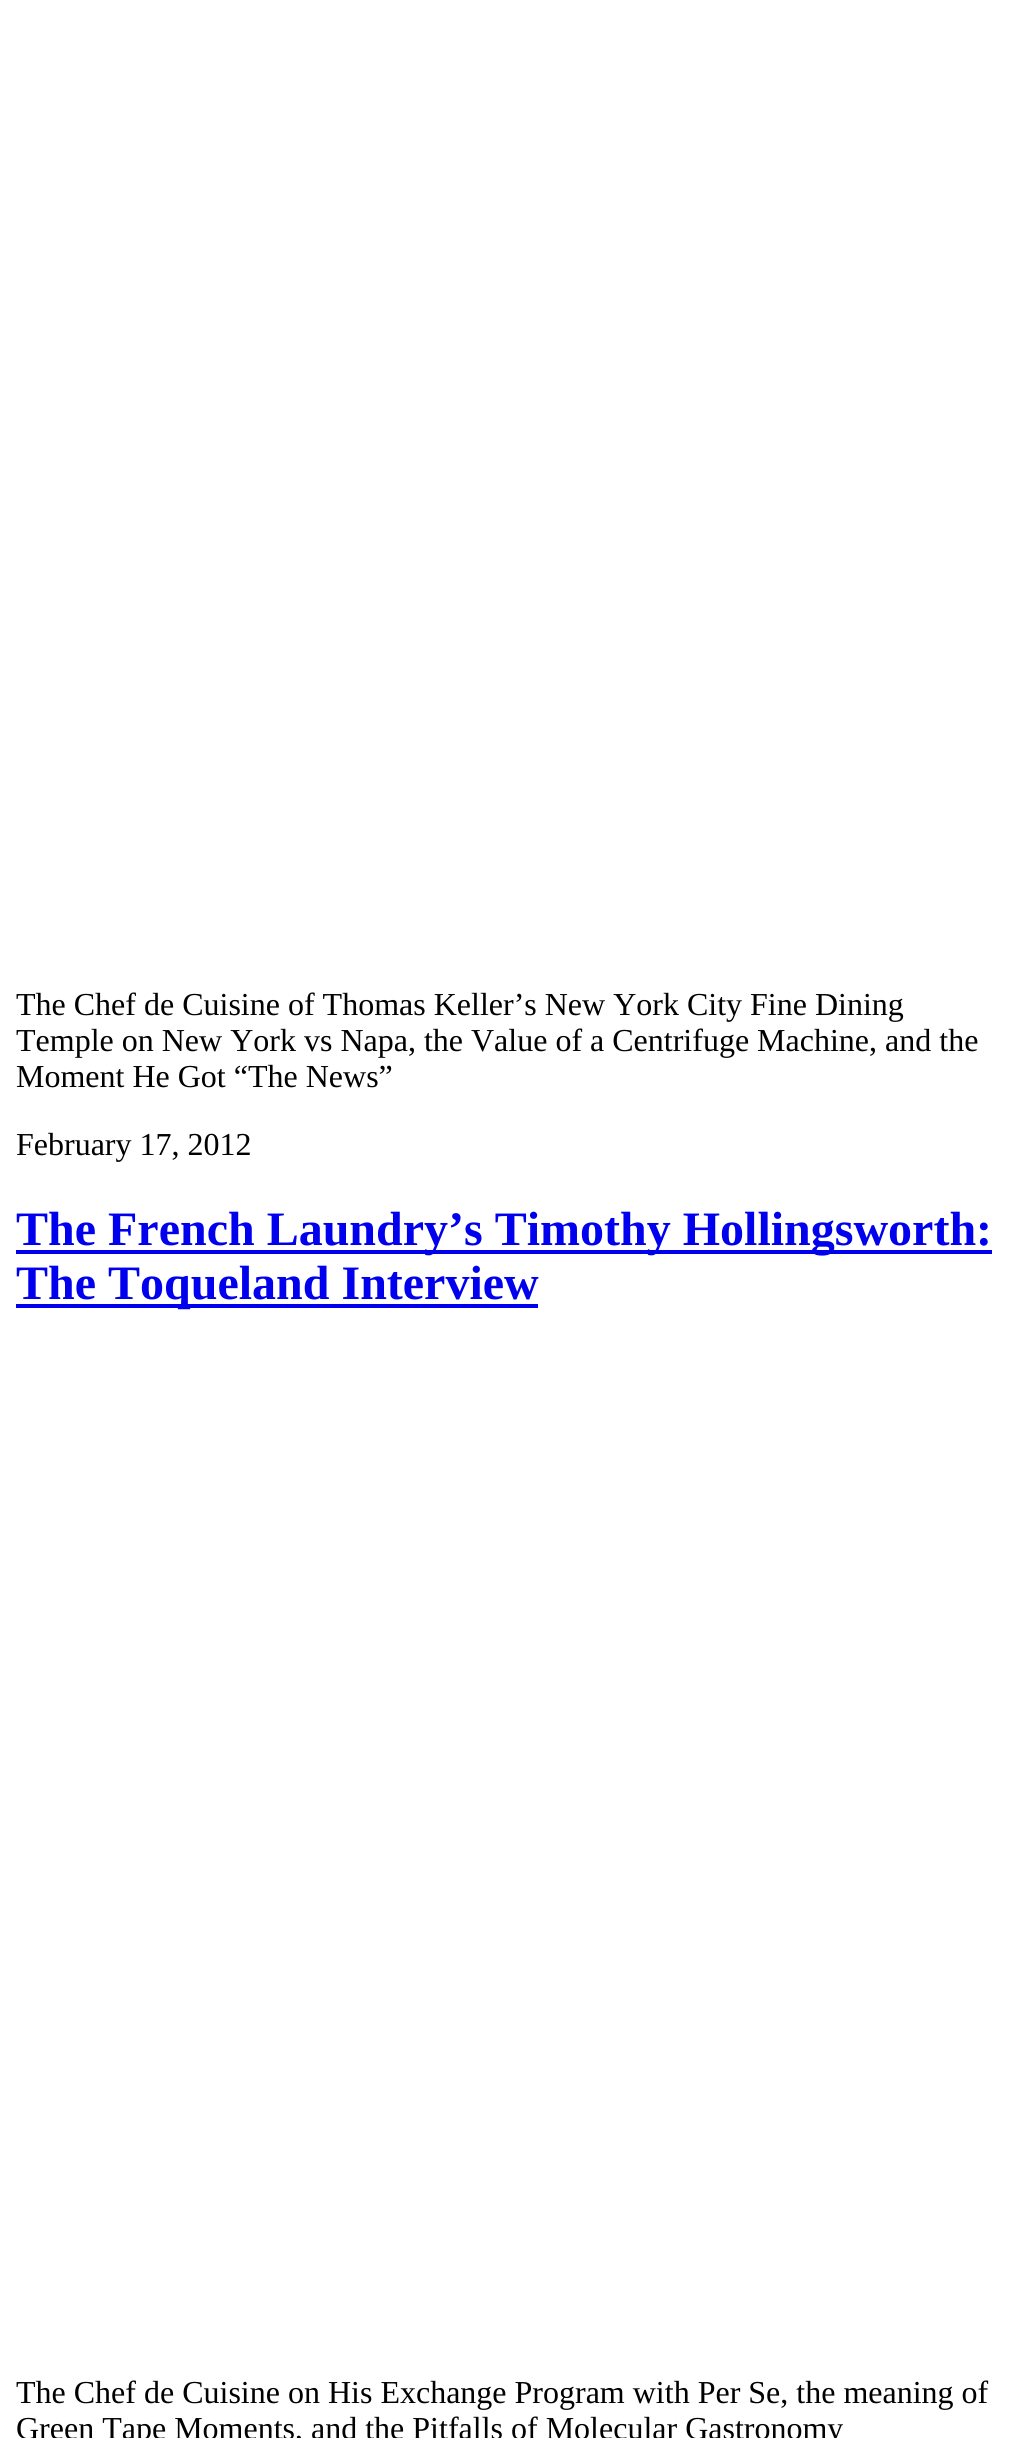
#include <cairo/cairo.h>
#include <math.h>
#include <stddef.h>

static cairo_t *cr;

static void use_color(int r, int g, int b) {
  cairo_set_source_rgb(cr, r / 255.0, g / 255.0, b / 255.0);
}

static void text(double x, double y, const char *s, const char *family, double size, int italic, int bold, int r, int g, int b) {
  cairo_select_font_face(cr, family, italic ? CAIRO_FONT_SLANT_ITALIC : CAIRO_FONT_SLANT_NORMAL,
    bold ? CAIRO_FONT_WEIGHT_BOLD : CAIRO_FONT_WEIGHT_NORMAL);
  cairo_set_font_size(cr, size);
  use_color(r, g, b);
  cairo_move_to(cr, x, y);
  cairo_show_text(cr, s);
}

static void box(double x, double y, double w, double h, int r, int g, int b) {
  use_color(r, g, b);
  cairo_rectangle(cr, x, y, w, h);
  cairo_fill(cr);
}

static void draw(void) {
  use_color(255, 255, 255);
  cairo_paint(cr);
  box(16, 1250, 976, 4, 0, 0, 238);
  box(16, 1304, 522, 4, 0, 0, 238);
  text(16, 1015, "The Chef de Cuisine of Thomas Keller’s New York City Fine Dining", "Liberation Serif", 32, 0, 0, 0, 0, 0);
  text(16, 1051, "Temple on New York vs Napa, the Value of a Centrifuge Machine, and the", "Liberation Serif", 32, 0, 0, 0, 0, 0);
  text(16, 1087, "Moment He Got “The News”", "Liberation Serif", 32, 0, 0, 0, 0, 0);
  text(16, 1155, "February 17, 2012", "Liberation Serif", 32, 0, 0, 0, 0, 0);
  text(16, 1245, "The French Laundry’s Timothy Hollingsworth:", "Liberation Serif", 48, 0, 1, 0, 0, 238);
  text(16, 1299, "The Toqueland Interview", "Liberation Serif", 48, 0, 1, 0, 0, 238);
  text(16, 2403, "The Chef de Cuisine on His Exchange Program with Per Se, the meaning of", "Liberation Serif", 32, 0, 0, 0, 0, 0);
  text(16, 2439, "Green Tape Moments, and the Pitfalls of Molecular Gastronomy", "Liberation Serif", 32, 0, 0, 0, 0, 0);
}

int main(void) {
  cairo_surface_t *surface = cairo_image_surface_create(CAIRO_FORMAT_RGB24, 1016, 2438);
  cr = cairo_create(surface);
  cairo_font_options_t *options = cairo_font_options_create();
  cairo_font_options_set_hint_metrics(options, CAIRO_HINT_METRICS_OFF);
  cairo_font_options_set_hint_style(options, CAIRO_HINT_STYLE_NONE);
  cairo_set_font_options(cr, options);
  cairo_set_miter_limit(cr, 4);
  draw();
  cairo_surface_write_to_png(surface, "out.png");
  cairo_font_options_destroy(options);
  cairo_destroy(cr);
  cairo_surface_destroy(surface);
  return 0;
}
